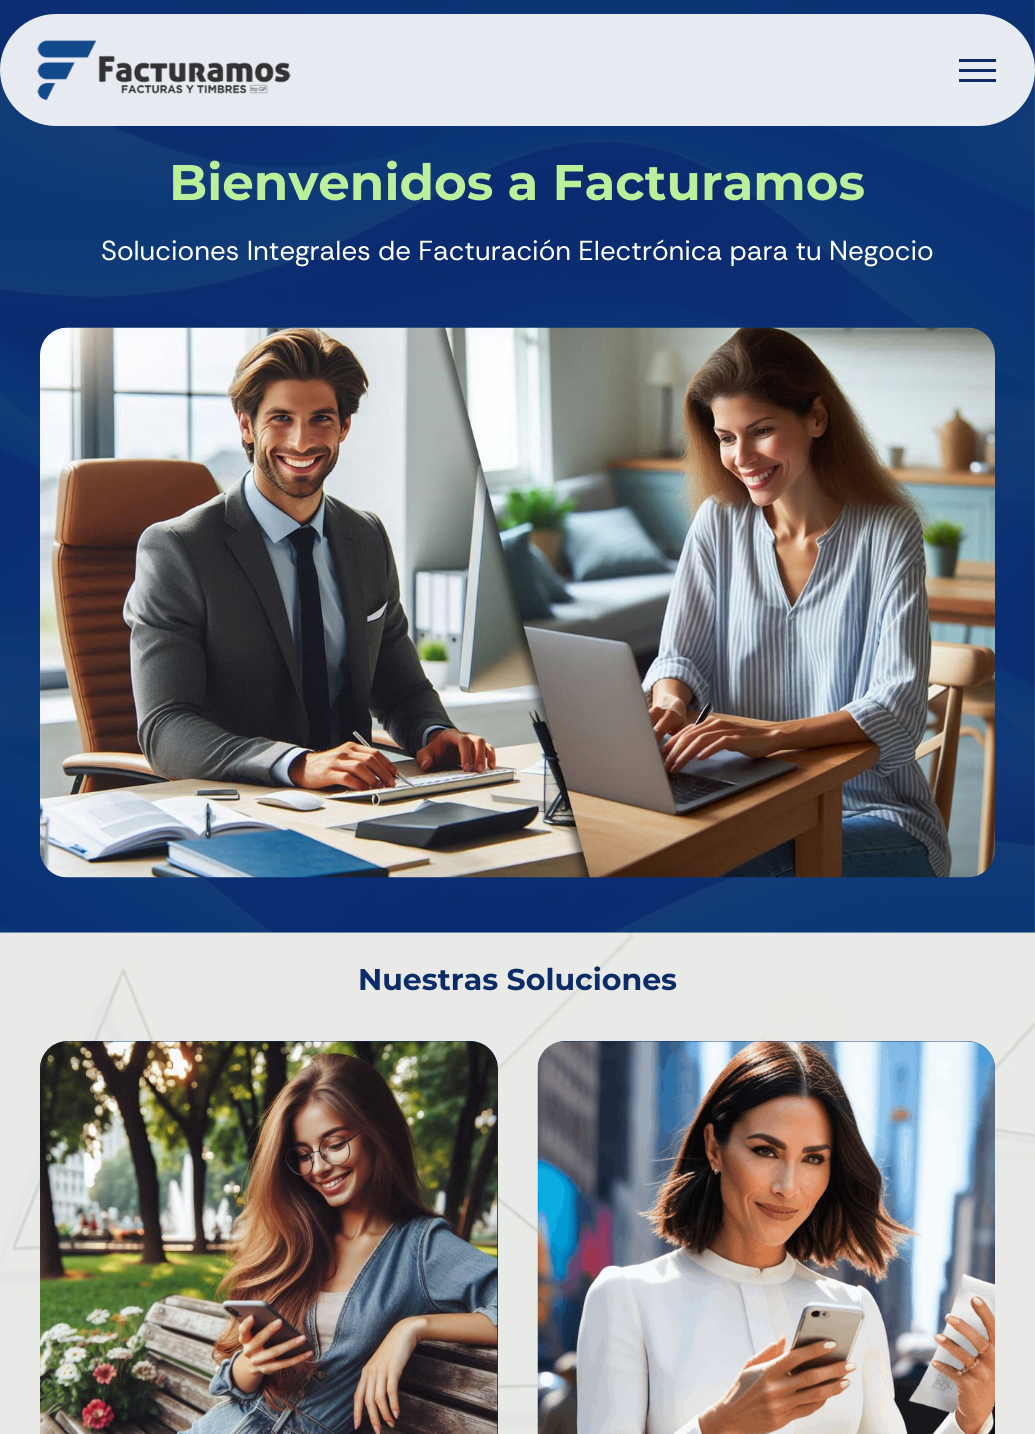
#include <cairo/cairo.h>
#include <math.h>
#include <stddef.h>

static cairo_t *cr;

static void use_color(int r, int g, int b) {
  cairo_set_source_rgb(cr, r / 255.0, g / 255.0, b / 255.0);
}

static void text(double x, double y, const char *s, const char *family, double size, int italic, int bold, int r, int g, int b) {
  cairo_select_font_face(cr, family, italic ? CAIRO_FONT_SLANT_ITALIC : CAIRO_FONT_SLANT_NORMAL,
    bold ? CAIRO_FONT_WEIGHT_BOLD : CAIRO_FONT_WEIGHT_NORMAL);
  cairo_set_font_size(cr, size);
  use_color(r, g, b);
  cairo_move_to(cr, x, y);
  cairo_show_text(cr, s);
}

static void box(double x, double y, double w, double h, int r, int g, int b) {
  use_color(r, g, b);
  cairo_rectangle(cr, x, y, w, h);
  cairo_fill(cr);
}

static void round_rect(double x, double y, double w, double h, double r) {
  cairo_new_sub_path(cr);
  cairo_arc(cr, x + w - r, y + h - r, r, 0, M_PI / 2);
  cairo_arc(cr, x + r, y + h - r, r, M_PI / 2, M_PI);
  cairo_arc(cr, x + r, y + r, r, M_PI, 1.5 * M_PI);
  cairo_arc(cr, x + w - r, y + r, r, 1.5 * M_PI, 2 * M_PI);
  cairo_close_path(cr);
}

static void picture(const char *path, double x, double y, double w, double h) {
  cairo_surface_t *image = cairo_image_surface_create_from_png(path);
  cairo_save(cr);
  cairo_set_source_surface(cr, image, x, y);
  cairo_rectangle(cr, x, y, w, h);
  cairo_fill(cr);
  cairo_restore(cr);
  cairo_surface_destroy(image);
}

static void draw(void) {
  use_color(255, 255, 255);
  cairo_paint(cr);
  picture("img_02.png", 0, 0, 1035, 933);
  cairo_set_source_rgba(cr, 1, 1, 1, 0.9);
  round_rect(0, 14, 1035, 112, 56);
  cairo_fill(cr);
  picture("img_01.png", 36, 39, 255, 62);
  box(959, 59, 37, 3, 12, 44, 104);
  box(959, 69, 37, 3, 12, 44, 104);
  box(959, 79, 37, 3, 12, 44, 104);
  picture("img_03.png", 40, 327, 955, 551);
  picture("img_04.png", 0, 932, 1035, 502);
  round_rect(40, 1041, 458, 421, 28);
  cairo_fill(cr);
  picture("img_05.png", 40, 1041, 458, 393);
  round_rect(538, 1041, 457, 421, 28);
  cairo_fill(cr);
  picture("img_06.png", 537, 1041, 458, 393);
  text(169, 200, "Bienvenidos a Facturamos", "Montserrat", 50, 0, 1, 188, 239, 155);
  text(101, 260, "Soluciones Integrales de Facturación Electrónica para tu Negocio", "Rethink Sans", 27.5, 0, 0, 255, 255, 255);
  text(358, 990, "Nuestras Soluciones", "Montserrat", 30, 0, 1, 12, 44, 104);
}

int main(void) {
  cairo_surface_t *surface = cairo_image_surface_create(CAIRO_FORMAT_RGB24, 1035, 1434);
  cr = cairo_create(surface);
  cairo_font_options_t *options = cairo_font_options_create();
  cairo_font_options_set_hint_metrics(options, CAIRO_HINT_METRICS_OFF);
  cairo_font_options_set_hint_style(options, CAIRO_HINT_STYLE_NONE);
  cairo_set_font_options(cr, options);
  cairo_set_miter_limit(cr, 4);
  draw();
  cairo_surface_write_to_png(surface, "out.png");
  cairo_font_options_destroy(options);
  cairo_destroy(cr);
  cairo_surface_destroy(surface);
  return 0;
}
